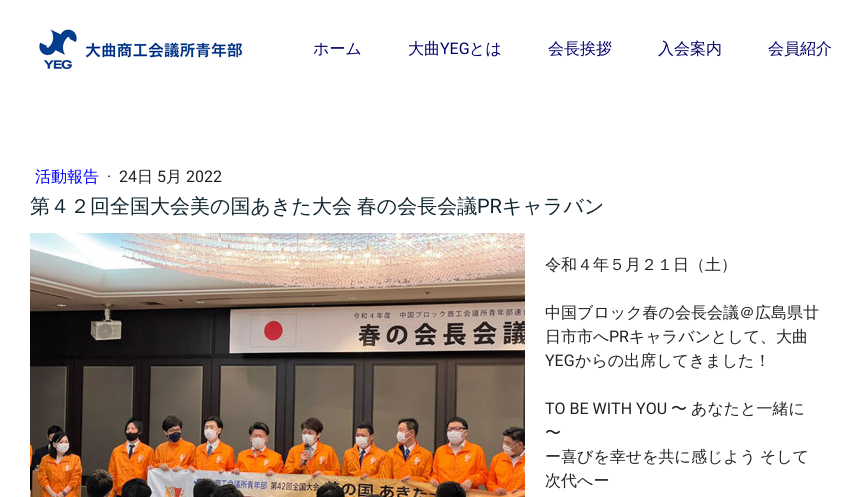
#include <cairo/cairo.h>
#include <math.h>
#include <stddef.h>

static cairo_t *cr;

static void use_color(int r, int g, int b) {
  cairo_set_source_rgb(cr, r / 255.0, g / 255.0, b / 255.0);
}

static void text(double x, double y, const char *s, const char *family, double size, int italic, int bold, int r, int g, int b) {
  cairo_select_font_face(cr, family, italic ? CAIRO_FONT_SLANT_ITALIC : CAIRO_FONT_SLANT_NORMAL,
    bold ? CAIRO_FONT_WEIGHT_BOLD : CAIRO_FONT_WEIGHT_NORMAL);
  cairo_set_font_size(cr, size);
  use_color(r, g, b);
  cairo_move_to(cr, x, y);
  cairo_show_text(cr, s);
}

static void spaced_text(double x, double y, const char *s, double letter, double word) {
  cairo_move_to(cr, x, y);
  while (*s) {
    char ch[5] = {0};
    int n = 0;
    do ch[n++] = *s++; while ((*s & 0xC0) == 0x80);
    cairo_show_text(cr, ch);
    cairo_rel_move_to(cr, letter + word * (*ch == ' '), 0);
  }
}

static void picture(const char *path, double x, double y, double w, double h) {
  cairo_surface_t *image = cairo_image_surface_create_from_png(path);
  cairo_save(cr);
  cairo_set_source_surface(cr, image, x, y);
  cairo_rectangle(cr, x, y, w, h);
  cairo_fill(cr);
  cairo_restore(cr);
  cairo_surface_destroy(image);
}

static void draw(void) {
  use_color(255, 255, 255);
  cairo_paint(cr);
  picture("img_01.png", 39, 29, 204, 41);
  picture("img_02.png", 30, 233, 495, 264);
  text(313, 54, "ホーム", "WenQuanYi Zen Hei Medium", 16, 0, 0, 2, 1, 107);
  text(408, 54, "大曲", "WenQuanYi Zen Hei Medium", 16, 0, 0, 2, 1, 107);
  text(440, 54, "YEG", "Roboto", 16, 0, 0, 2, 1, 107);
  text(469, 54, "とは", "WenQuanYi Zen Hei Medium", 16, 0, 0, 2, 1, 107);
  text(548, 54, "会長挨拶", "WenQuanYi Zen Hei Medium", 16, 0, 0, 2, 1, 107);
  text(658, 54, "入会案内", "WenQuanYi Zen Hei Medium", 16, 0, 0, 2, 1, 107);
  text(768, 54, "会員紹介", "WenQuanYi Zen Hei Medium", 16, 0, 0, 2, 1, 107);
  text(35, 182, "活動報告", "WenQuanYi Zen Hei Medium", 16, 0, 0, 0, 0, 255);
  text(107, 182, "·", "Roboto", 16, 0, 0, 34, 34, 34);
  text(119, 182, "24", "Roboto", 16, 0, 0, 34, 34, 34);
  text(137, 182, "日", "WenQuanYi Zen Hei Medium", 16, 0, 0, 34, 34, 34);
  text(157, 182, "5", "Roboto", 16, 0, 0, 34, 34, 34);
  text(166, 182, "月", "WenQuanYi Zen Hei Medium", 16, 0, 0, 34, 34, 34);
  text(186, 182, "2022", "Roboto", 16, 0, 0, 34, 34, 34);
  cairo_select_font_face(cr, "WenQuanYi Zen Hei Medium", CAIRO_FONT_SLANT_NORMAL, CAIRO_FONT_WEIGHT_NORMAL);
  cairo_set_font_size(cr, 20);
  use_color(17, 38, 49);
  spaced_text(30, 213, "第４２回全国大会美の国あきた大会 春の会長会議", 0, -1);
  text(477, 213, "PR", "Roboto", 20, 0, 0, 17, 38, 49);
  text(502, 213, "キャラバン", "WenQuanYi Zen Hei Medium", 20, 0, 0, 17, 38, 49);
  text(545, 270, "令和４年５月２１日（土）", "WenQuanYi Zen Hei Medium", 16, 0, 0, 34, 34, 34);
  text(545, 318, "中国ブロック春の会長会議＠広島県廿", "WenQuanYi Zen Hei Medium", 16, 0, 0, 34, 34, 34);
  text(545, 342, "日市市へ", "WenQuanYi Zen Hei Medium", 16, 0, 0, 34, 34, 34);
  text(609, 342, "PR", "Roboto", 16, 0, 0, 34, 34, 34);
  text(629, 342, "キャラバンとして、大曲", "WenQuanYi Zen Hei Medium", 16, 0, 0, 34, 34, 34);
  text(545, 366, "YEG", "Roboto", 16, 0, 0, 34, 34, 34);
  text(575, 366, "からの出席してきました！", "WenQuanYi Zen Hei Medium", 16, 0, 0, 34, 34, 34);
  text(545, 414, "TO BE WITH YOU", "Roboto", 16, 0, 0, 34, 34, 34);
  text(671, 414, "〜", "WenQuanYi Zen Hei Medium", 16, 0, 0, 34, 34, 34);
  text(691, 414, "あなたと一緒に", "WenQuanYi Zen Hei Medium", 16, 0, 0, 34, 34, 34);
  text(545, 438, "〜", "WenQuanYi Zen Hei Medium", 16, 0, 0, 34, 34, 34);
  spaced_text(545, 462, "ー喜びを幸せを共に感じよう そして", 0, -1);
  text(545, 486, "次代へー", "WenQuanYi Zen Hei Medium", 16, 0, 0, 34, 34, 34);
}

int main(void) {
  cairo_surface_t *surface = cairo_image_surface_create(CAIRO_FORMAT_RGB24, 850, 497);
  cr = cairo_create(surface);
  cairo_font_options_t *options = cairo_font_options_create();
  cairo_font_options_set_hint_metrics(options, CAIRO_HINT_METRICS_OFF);
  cairo_font_options_set_hint_style(options, CAIRO_HINT_STYLE_NONE);
  cairo_set_font_options(cr, options);
  cairo_set_miter_limit(cr, 4);
  draw();
  cairo_surface_write_to_png(surface, "out.png");
  cairo_font_options_destroy(options);
  cairo_destroy(cr);
  cairo_surface_destroy(surface);
  return 0;
}
